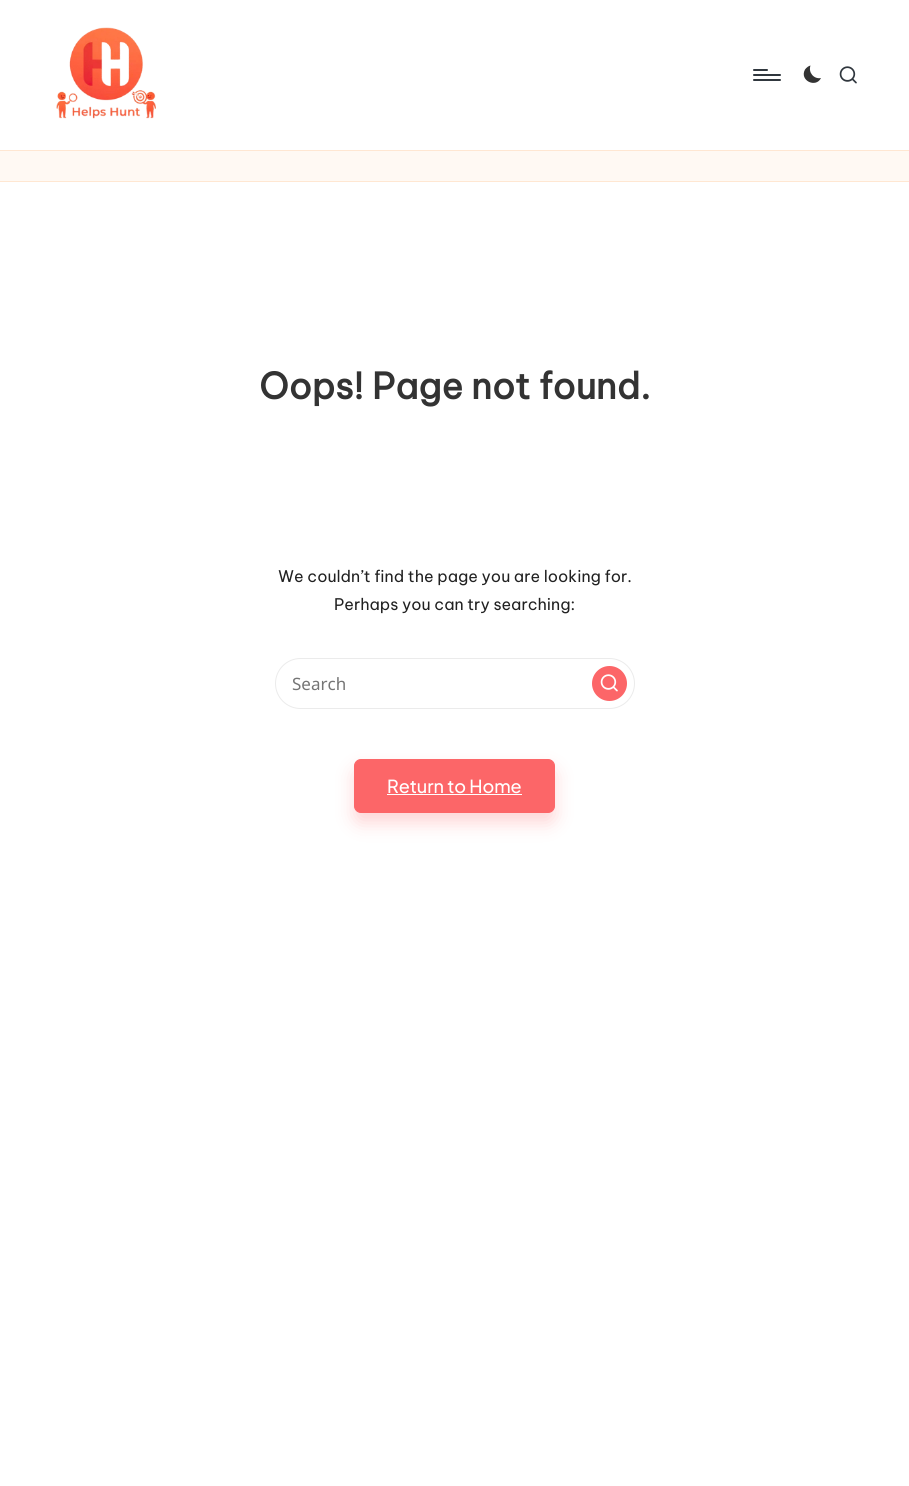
#include <cairo/cairo.h>
#include <math.h>
#include <stddef.h>

static cairo_t *cr;

static void use_color(int r, int g, int b) {
  cairo_set_source_rgb(cr, r / 255.0, g / 255.0, b / 255.0);
}

static void text(double x, double y, const char *s, const char *family, double size, int italic, int bold, int r, int g, int b) {
  cairo_select_font_face(cr, family, italic ? CAIRO_FONT_SLANT_ITALIC : CAIRO_FONT_SLANT_NORMAL,
    bold ? CAIRO_FONT_WEIGHT_BOLD : CAIRO_FONT_WEIGHT_NORMAL);
  cairo_set_font_size(cr, size);
  use_color(r, g, b);
  cairo_move_to(cr, x, y);
  cairo_show_text(cr, s);
}

static void box(double x, double y, double w, double h, int r, int g, int b) {
  use_color(r, g, b);
  cairo_rectangle(cr, x, y, w, h);
  cairo_fill(cr);
}

static void round_rect(double x, double y, double w, double h, double r) {
  cairo_new_sub_path(cr);
  cairo_arc(cr, x + w - r, y + h - r, r, 0, M_PI / 2);
  cairo_arc(cr, x + r, y + h - r, r, M_PI / 2, M_PI);
  cairo_arc(cr, x + r, y + r, r, M_PI, 1.5 * M_PI);
  cairo_arc(cr, x + w - r, y + r, r, 1.5 * M_PI, 2 * M_PI);
  cairo_close_path(cr);
}

static void shadow(double x, double y, double w, double h, double r, double blur, double alpha) {
  cairo_push_group_with_content(cr, CAIRO_CONTENT_ALPHA);
  cairo_set_operator(cr, CAIRO_OPERATOR_SOURCE);
  for (int i = 15; i >= -15 && fmin(w, h) + blur * i / 3 > 0; i -= 2) {
    double e = blur * i / 6;
    cairo_set_source_rgba(cr, 0, 0, 0, alpha * erfc((i - 1) / 8.5) / 2);
    round_rect(x - e, y - e, w + 2 * e, h + 2 * e, fmax(0, fmin(r + e + blur * .6, fmin(w, h) / 2 + e)));
    cairo_fill(cr);
  }
  cairo_pattern_t *soft = cairo_pop_group(cr);
  cairo_mask(cr, soft);
  cairo_pattern_destroy(soft);
}

static void picture(const char *path, double x, double y, double w, double h) {
  cairo_surface_t *image = cairo_image_surface_create_from_png(path);
  cairo_save(cr);
  cairo_set_source_surface(cr, image, x, y);
  cairo_rectangle(cr, x, y, w, h);
  cairo_fill(cr);
  cairo_restore(cr);
  cairo_surface_destroy(image);
}

static void draw(void) {
  use_color(255, 255, 255);
  cairo_paint(cr);
  picture("img_01.png", 56, 27, 100, 92);
  use_color(48, 55, 62);
  round_rect(753, 74, 28, 2, 1);
  cairo_fill(cr);
  round_rect(753, 69, 15, 2, 1);
  cairo_fill(cr);
  round_rect(753, 79, 28, 2, 1);
  cairo_fill(cr);
  use_color(51, 51, 51);
  cairo_new_path(cr);
  cairo_move_to(cr, 821, 78);
  cairo_curve_to(cr, 814, 79.5, 808, 72.5, 810.5, 65.5);
  cairo_curve_to(cr, 808.5, 66, 806.5, 67.5, 805, 69.5);
  cairo_curve_to(cr, 799, 80.5, 816, 88.5, 821, 78);
  cairo_close_path(cr);
  cairo_fill(cr);
  picture("img_02.png", 839, 66, 18, 18);
  box(0, 151, 909, 30, 255, 249, 243);
  box(0, 150, 909, 1, 255, 231, 210);
  box(0, 181, 909, 1, 255, 231, 210);
  round_rect(275.5, 658.5, 359, 50, 25);
  use_color(235, 235, 235);
  cairo_set_line_width(cr, 1);
  cairo_stroke(cr);
  use_color(252, 102, 104);
  cairo_arc(cr, 609.5, 683.5, 17.5, 0, 2 * M_PI);
  cairo_fill(cr);
  picture("img_03.png", 600, 674, 18, 18);
  use_color(252, 102, 104);
  shadow(354, 769, 201, 54, 7, 9, 0.27);
  use_color(252, 102, 104);
  round_rect(354.5, 759.5, 200, 53, 6.5);
  cairo_fill_preserve(cr);
  cairo_stroke(cr);
  box(387, 794, 135, 1, 255, 255, 255);
  text(259, 399, "Oops! Page not found.", "Be Vietnam Pro", 36, 0, 1, 51, 51, 51);
  text(278, 582, "We couldn’t find the page you are looking for.", "Be Vietnam Pro", 16, 0, 0, 33, 33, 33);
  text(334, 610, "Perhaps you can try searching:", "Be Vietnam Pro", 16, 0, 0, 33, 33, 33);
  text(292, 690, "Search", "Noto Sans", 17, 0, 0, 117, 117, 117);
  text(387, 793, "Return to Home", "Plus Jakarta Sans Medium", 18, 0, 0, 255, 255, 255);
}

int main(void) {
  cairo_surface_t *surface = cairo_image_surface_create(CAIRO_FORMAT_RGB24, 909, 1486);
  cr = cairo_create(surface);
  cairo_font_options_t *options = cairo_font_options_create();
  cairo_font_options_set_hint_metrics(options, CAIRO_HINT_METRICS_OFF);
  cairo_font_options_set_hint_style(options, CAIRO_HINT_STYLE_NONE);
  cairo_set_font_options(cr, options);
  cairo_set_miter_limit(cr, 4);
  draw();
  cairo_surface_write_to_png(surface, "out.png");
  cairo_font_options_destroy(options);
  cairo_destroy(cr);
  cairo_surface_destroy(surface);
  return 0;
}
